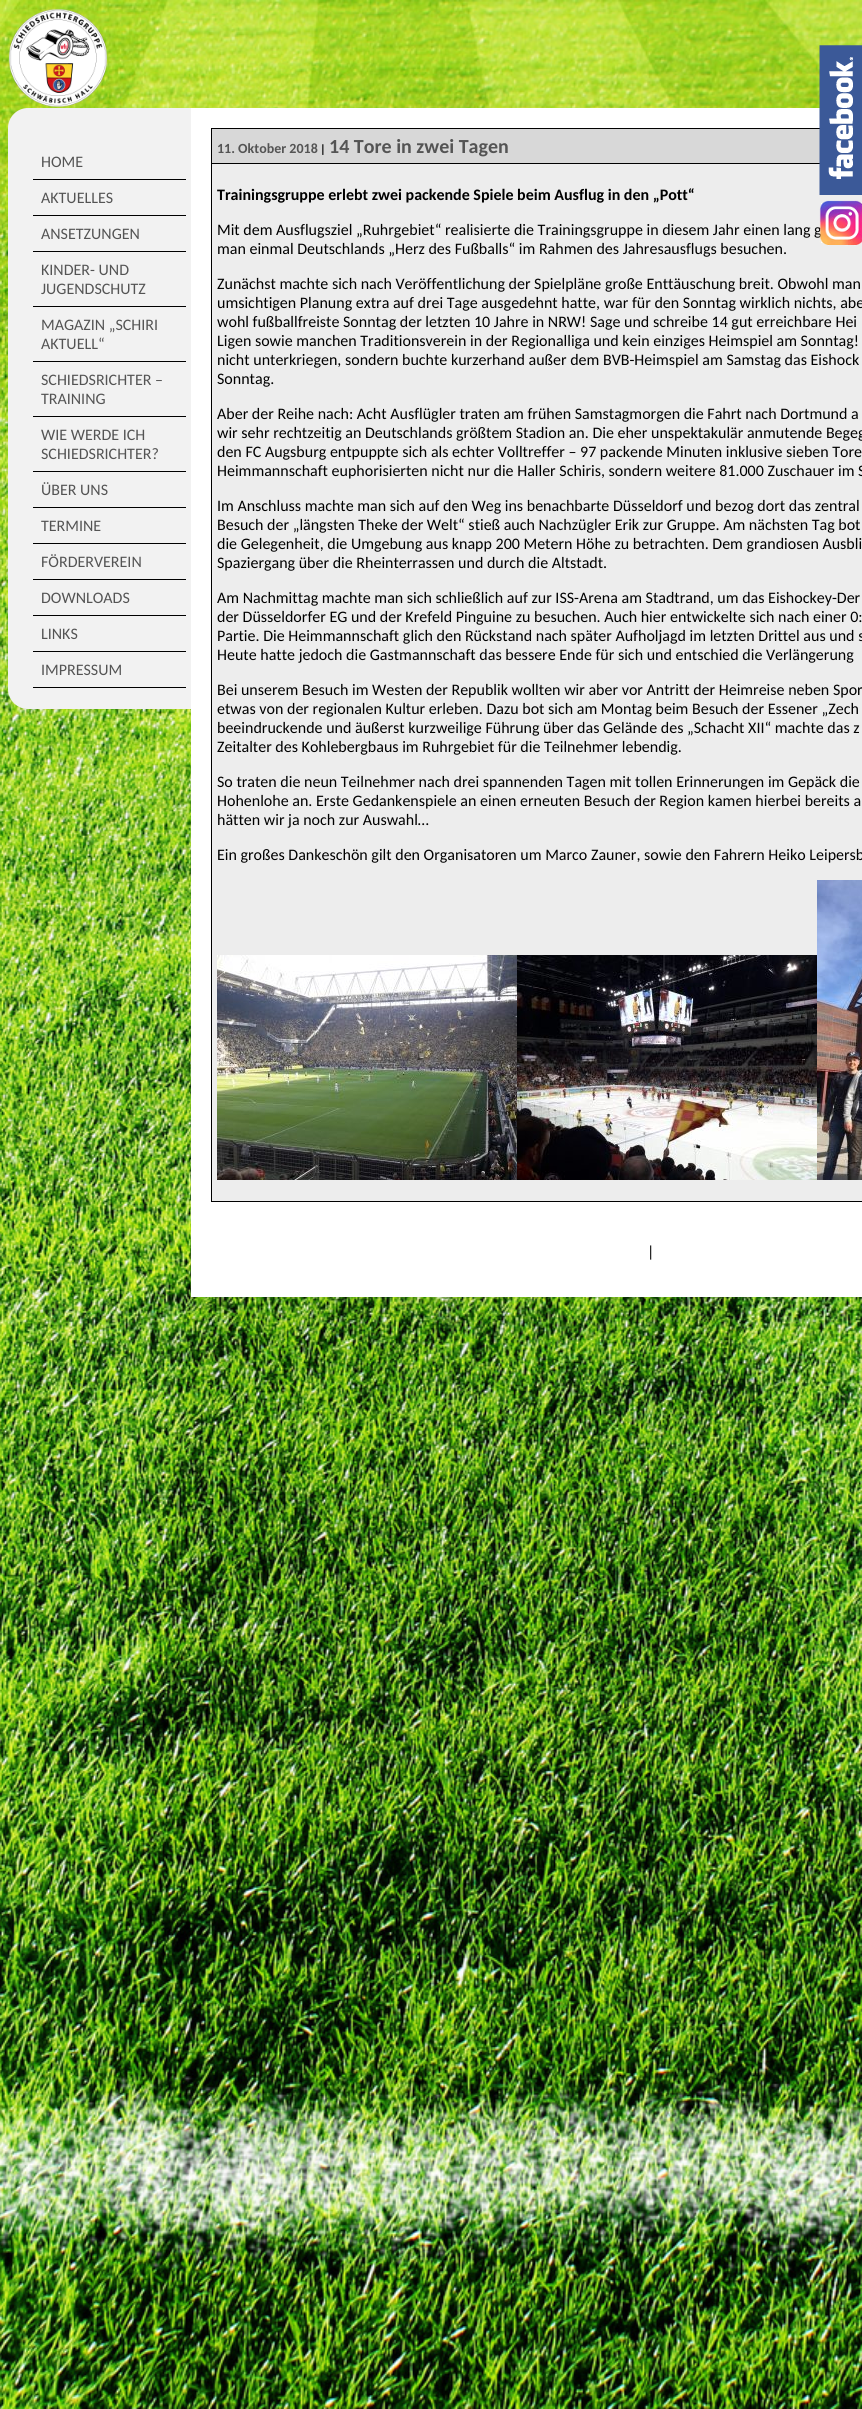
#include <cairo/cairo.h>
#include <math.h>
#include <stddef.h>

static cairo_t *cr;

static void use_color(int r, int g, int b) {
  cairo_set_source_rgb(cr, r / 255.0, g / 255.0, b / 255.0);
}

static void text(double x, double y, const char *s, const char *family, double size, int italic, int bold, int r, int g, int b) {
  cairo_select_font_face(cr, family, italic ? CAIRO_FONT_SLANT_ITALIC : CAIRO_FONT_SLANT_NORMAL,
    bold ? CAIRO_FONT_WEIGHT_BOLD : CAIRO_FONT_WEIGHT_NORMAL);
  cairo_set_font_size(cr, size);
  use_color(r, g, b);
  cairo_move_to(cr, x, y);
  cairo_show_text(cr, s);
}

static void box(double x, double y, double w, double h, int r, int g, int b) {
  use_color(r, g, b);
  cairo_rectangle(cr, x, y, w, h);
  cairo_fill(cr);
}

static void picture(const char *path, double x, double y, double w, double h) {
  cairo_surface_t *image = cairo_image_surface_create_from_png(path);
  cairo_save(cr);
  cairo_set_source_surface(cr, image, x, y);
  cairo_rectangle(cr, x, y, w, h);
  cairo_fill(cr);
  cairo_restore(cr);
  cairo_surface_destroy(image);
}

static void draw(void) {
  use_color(255, 255, 255);
  cairo_paint(cr);
  picture("img_01.png", 0, 0, 862, 2409);
  box(191, 108, 671, 1189, 255, 255, 255);
  box(212, 129, 608, 34, 216, 216, 216);
  cairo_rectangle(cr, 211.5, 128.5, 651, 35);
  use_color(0, 0, 0);
  cairo_set_line_width(cr, 1);
  cairo_stroke(cr);
  box(212, 164, 650, 1037, 237, 237, 237);
  picture("img_02.png", 819, 45, 43, 150);
  picture("img_03.png", 8, 8, 100, 100);
  use_color(242, 242, 242);
  cairo_new_path(cr);
  cairo_move_to(cr, 28, 108);
  cairo_line_to(cr, 191, 108);
  cairo_line_to(cr, 191, 709);
  cairo_line_to(cr, 28, 709);
  cairo_curve_to(cr, 17, 709, 8, 700, 8, 689);
  cairo_line_to(cr, 8, 128);
  cairo_curve_to(cr, 8, 117, 17, 108, 28, 108);
  cairo_close_path(cr);
  cairo_fill(cr);
  box(33, 179, 153, 1, 0, 0, 0);
  box(33, 215, 153, 1, 0, 0, 0);
  box(33, 251, 153, 1, 0, 0, 0);
  box(33, 306, 153, 1, 0, 0, 0);
  box(33, 361, 153, 1, 0, 0, 0);
  box(33, 416, 153, 1, 0, 0, 0);
  box(33, 471, 153, 1, 0, 0, 0);
  box(33, 507, 153, 1, 0, 0, 0);
  box(33, 543, 153, 1, 0, 0, 0);
  box(33, 579, 153, 1, 0, 0, 0);
  box(33, 615, 153, 1, 0, 0, 0);
  box(33, 651, 153, 1, 0, 0, 0);
  box(33, 687, 153, 1, 0, 0, 0);
  box(211, 1201, 651, 1, 0, 0, 0);
  box(211, 164, 1, 1038, 0, 0, 0);
  picture("img_04.png", 217, 955, 300, 225);
  picture("img_05.png", 517, 955, 300, 225);
  picture("img_06.png", 817, 880, 45, 300);
  text(41, 167, "HOME", "Carlito", 16, 0, 0, 84, 84, 84);
  text(41, 203, "AKTUELLES", "Carlito", 16, 0, 0, 84, 84, 84);
  text(41, 239, "ANSETZUNGEN", "Carlito", 16, 0, 0, 84, 84, 84);
  text(41, 275, "KINDER- UND", "Carlito", 16, 0, 0, 84, 84, 84);
  text(41, 294, "JUGENDSCHUTZ", "Carlito", 16, 0, 0, 84, 84, 84);
  text(41, 330, "MAGAZIN „SCHIRI", "Carlito", 16, 0, 0, 84, 84, 84);
  text(41, 349, "AKTUELL“", "Carlito", 16, 0, 0, 84, 84, 84);
  text(41, 385, "SCHIEDSRICHTER –", "Carlito", 16, 0, 0, 84, 84, 84);
  text(41, 404, "TRAINING", "Carlito", 16, 0, 0, 84, 84, 84);
  text(41, 440, "WIE WERDE ICH", "Carlito", 16, 0, 0, 84, 84, 84);
  text(41, 459, "SCHIEDSRICHTER?", "Carlito", 16, 0, 0, 84, 84, 84);
  text(41, 495, "ÜBER UNS", "Carlito", 16, 0, 0, 84, 84, 84);
  text(41, 531, "TERMINE", "Carlito", 16, 0, 0, 84, 84, 84);
  text(41, 567, "FÖRDERVEREIN", "Carlito", 16, 0, 0, 84, 84, 84);
  text(41, 603, "DOWNLOADS", "Carlito", 16, 0, 0, 84, 84, 84);
  text(41, 639, "LINKS", "Carlito", 16, 0, 0, 84, 84, 84);
  text(41, 675, "IMPRESSUM", "Carlito", 16, 0, 0, 84, 84, 84);
  text(217, 153, "11. Oktober 2018", "Carlito", 14, 0, 1, 84, 84, 84);
  text(320, 153, "|", "Carlito", 12, 0, 1, 0, 0, 0);
  text(329, 153, "14 Tore in zwei Tagen", "Carlito", 20, 0, 1, 84, 84, 84);
  text(217, 200, "Trainingsgruppe erlebt zwei packende Spiele beim Ausflug in den „Pott“", "Carlito", 16, 0, 1, 0, 0, 0);
  text(217, 235, "Mit dem Ausflugsziel „Ruhrgebiet“ realisierte die Trainingsgruppe in diesem Jahr einen lang g", "Carlito", 16, 0, 0, 0, 0, 0);
  text(217, 254, "man einmal Deutschlands „Herz des Fußballs“ im Rahmen des Jahresausflugs besuchen.", "Carlito", 16, 0, 0, 0, 0, 0);
  text(217, 289, "Zunächst machte sich nach Veröffentlichung der Spielpläne große Enttäuschung breit. Obwohl man", "Carlito", 16, 0, 0, 0, 0, 0);
  text(217, 308, "umsichtigen Planung extra auf drei Tage ausgedehnt hatte, war für den Sonntag wirklich nichts, abe", "Carlito", 16, 0, 0, 0, 0, 0);
  text(217, 327, "wohl fußballfreiste Sonntag der letzten 10 Jahre in NRW! Sage und schreibe 14 gut erreichbare Hei", "Carlito", 16, 0, 0, 0, 0, 0);
  text(217, 346, "Ligen sowie manchen Traditionsverein in der Regionalliga und kein einziges Heimspiel am Sonntag!", "Carlito", 16, 0, 0, 0, 0, 0);
  text(217, 365, "nicht unterkriegen, sondern buchte kurzerhand außer dem BVB-Heimspiel am Samstag das Eishock", "Carlito", 16, 0, 0, 0, 0, 0);
  text(217, 384, "Sonntag.", "Carlito", 16, 0, 0, 0, 0, 0);
  text(217, 419, "Aber der Reihe nach: Acht Ausflügler traten am frühen Samstagmorgen die Fahrt nach Dortmund a", "Carlito", 16, 0, 0, 0, 0, 0);
  text(217, 438, "wir sehr rechtzeitig an Deutschlands größtem Stadion an. Die eher unspektakulär anmutende Begeg", "Carlito", 16, 0, 0, 0, 0, 0);
  text(217, 457, "den FC Augsburg entpuppte sich als echter Volltreffer – 97 packende Minuten inklusive sieben Tore", "Carlito", 16, 0, 0, 0, 0, 0);
  text(217, 476, "Heimmannschaft euphorisierten nicht nur die Haller Schiris, sondern weitere 81.000 Zuschauer im S", "Carlito", 16, 0, 0, 0, 0, 0);
  text(217, 511, "Im Anschluss machte man sich auf den Weg ins benachbarte Düsseldorf und bezog dort das zentral", "Carlito", 16, 0, 0, 0, 0, 0);
  text(217, 530, "Besuch der „längsten Theke der Welt“ stieß auch Nachzügler Erik zur Gruppe. Am nächsten Tag bot", "Carlito", 16, 0, 0, 0, 0, 0);
  text(217, 549, "die Gelegenheit, die Umgebung aus knapp 200 Metern Höhe zu betrachten. Dem grandiosen Ausbli", "Carlito", 16, 0, 0, 0, 0, 0);
  text(217, 568, "Spaziergang über die Rheinterrassen und durch die Altstadt.", "Carlito", 16, 0, 0, 0, 0, 0);
  text(217, 603, "Am Nachmittag machte man sich schließlich auf zur ISS-Arena am Stadtrand, um das Eishockey-Der", "Carlito", 16, 0, 0, 0, 0, 0);
  text(217, 622, "der Düsseldorfer EG und der Krefeld Pinguine zu besuchen. Auch hier entwickelte sich nach einer 0:", "Carlito", 16, 0, 0, 0, 0, 0);
  text(217, 641, "Partie. Die Heimmannschaft glich den Rückstand nach später Aufholjagd im letzten Drittel aus und s", "Carlito", 16, 0, 0, 0, 0, 0);
  text(217, 660, "Heute hatte jedoch die Gastmannschaft das bessere Ende für sich und entschied die Verlängerung", "Carlito", 16, 0, 0, 0, 0, 0);
  text(217, 695, "Bei unserem Besuch im Westen der Republik wollten wir aber vor Antritt der Heimreise neben Spor", "Carlito", 16, 0, 0, 0, 0, 0);
  text(217, 714, "etwas von der regionalen Kultur erleben. Dazu bot sich am Montag beim Besuch der Essener „Zech", "Carlito", 16, 0, 0, 0, 0, 0);
  text(217, 733, "beeindruckende und äußerst kurzweilige Führung über das Gelände des „Schacht XII“ machte das z", "Carlito", 16, 0, 0, 0, 0, 0);
  text(217, 752, "Zeitalter des Kohlebergbaus im Ruhrgebiet für die Teilnehmer lebendig.", "Carlito", 16, 0, 0, 0, 0, 0);
  text(217, 787, "So traten die neun Teilnehmer nach drei spannenden Tagen mit tollen Erinnerungen im Gepäck die", "Carlito", 16, 0, 0, 0, 0, 0);
  text(217, 806, "Hohenlohe an. Erste Gedankenspiele an einen erneuten Besuch der Region kamen hierbei bereits a", "Carlito", 16, 0, 0, 0, 0, 0);
  text(217, 825, "hätten wir ja noch zur Auswahl…", "Carlito", 16, 0, 0, 0, 0, 0);
  text(217, 860, "Ein großes Dankeschön gilt den Organisatoren um Marco Zauner, sowie den Fahrern Heiko Leipersb", "Carlito", 16, 0, 0, 0, 0, 0);
  text(647, 1257, "|", "Carlito", 16, 0, 0, 0, 0, 0);
  picture("img_07.png", 819, 200, 43, 46);
}

int main(void) {
  cairo_surface_t *surface = cairo_image_surface_create(CAIRO_FORMAT_RGB24, 862, 2409);
  cr = cairo_create(surface);
  cairo_font_options_t *options = cairo_font_options_create();
  cairo_font_options_set_hint_metrics(options, CAIRO_HINT_METRICS_OFF);
  cairo_font_options_set_hint_style(options, CAIRO_HINT_STYLE_NONE);
  cairo_set_font_options(cr, options);
  cairo_set_miter_limit(cr, 4);
  draw();
  cairo_surface_write_to_png(surface, "out.png");
  cairo_font_options_destroy(options);
  cairo_destroy(cr);
  cairo_surface_destroy(surface);
  return 0;
}
